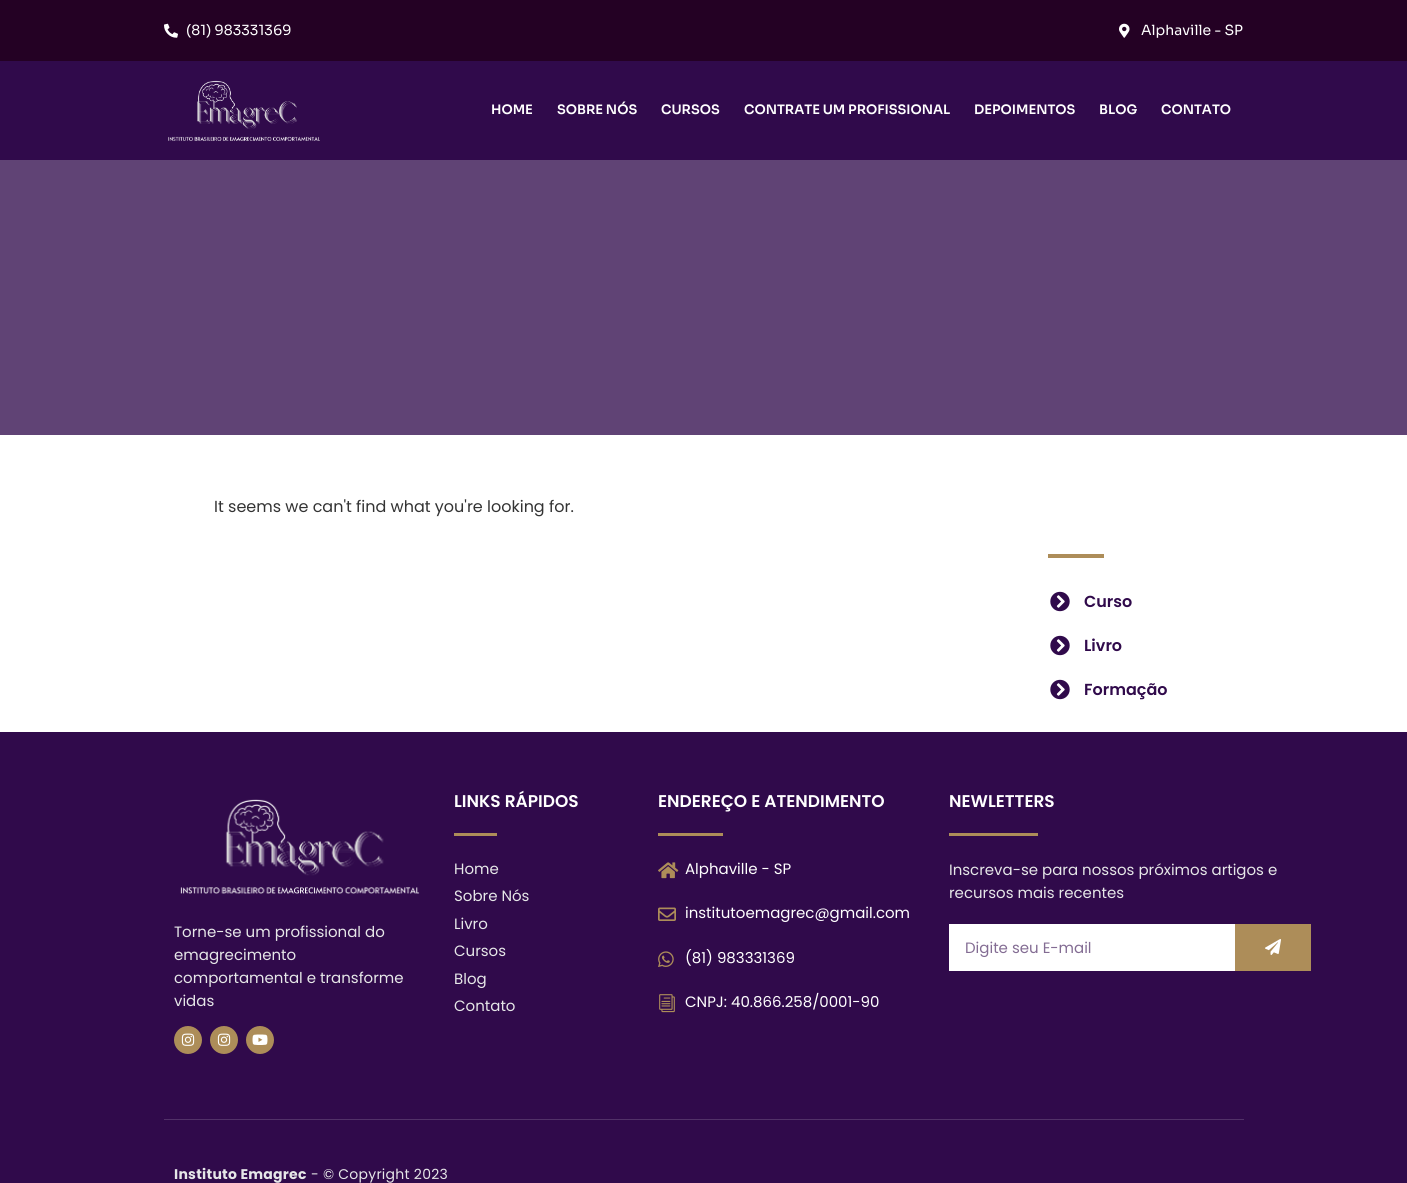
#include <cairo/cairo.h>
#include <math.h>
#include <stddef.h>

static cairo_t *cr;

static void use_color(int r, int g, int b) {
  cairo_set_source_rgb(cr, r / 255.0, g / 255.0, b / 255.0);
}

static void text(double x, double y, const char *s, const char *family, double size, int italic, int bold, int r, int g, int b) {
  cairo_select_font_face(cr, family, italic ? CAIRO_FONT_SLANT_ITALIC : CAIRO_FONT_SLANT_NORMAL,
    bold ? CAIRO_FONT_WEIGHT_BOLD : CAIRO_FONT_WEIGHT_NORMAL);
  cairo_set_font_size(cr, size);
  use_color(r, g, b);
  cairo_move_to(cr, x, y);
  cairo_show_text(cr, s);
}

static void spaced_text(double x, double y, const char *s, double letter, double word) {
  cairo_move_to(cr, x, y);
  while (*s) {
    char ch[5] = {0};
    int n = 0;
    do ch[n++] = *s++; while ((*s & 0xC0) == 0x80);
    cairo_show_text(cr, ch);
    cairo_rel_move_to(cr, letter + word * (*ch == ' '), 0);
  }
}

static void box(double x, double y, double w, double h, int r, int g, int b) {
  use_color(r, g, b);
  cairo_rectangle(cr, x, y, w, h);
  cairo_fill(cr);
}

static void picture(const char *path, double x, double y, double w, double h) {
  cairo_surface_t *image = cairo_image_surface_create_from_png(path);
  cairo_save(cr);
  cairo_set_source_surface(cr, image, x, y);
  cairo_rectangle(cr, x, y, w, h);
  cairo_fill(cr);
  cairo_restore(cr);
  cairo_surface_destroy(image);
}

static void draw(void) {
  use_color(255, 255, 255);
  cairo_paint(cr);
  box(0, 0, 1407, 61, 36, 1, 36);
  picture("img_01.png", 164, 23, 14, 15);
  picture("img_02.png", 1119, 23, 11, 15);
  box(0, 61, 1407, 99, 48, 10, 75);
  picture("img_03.png", 168, 80, 152, 61);
  box(0, 160, 1407, 275, 96, 67, 117);
  box(1048, 554, 56, 4, 173, 141, 89);
  picture("img_04.png", 1050, 591, 20, 21);
  picture("img_04.png", 1050, 635, 20, 21);
  picture("img_04.png", 1050, 679, 20, 21);
  box(0, 732, 1407, 451, 48, 10, 75);
  picture("img_05.png", 180, 799, 240, 95);
  use_color(173, 141, 89);
  cairo_arc(cr, 188, 1040, 14, 0, 2 * M_PI);
  cairo_fill(cr);
  picture("img_06.png", 181, 1033, 14, 13);
  cairo_arc(cr, 224, 1040, 14, 0, 2 * M_PI);
  cairo_fill(cr);
  picture("img_06.png", 217, 1033, 14, 13);
  cairo_arc(cr, 260, 1040, 14, 0, 2 * M_PI);
  cairo_fill(cr);
  picture("img_07.png", 252, 1034, 16, 11);
  box(454, 833, 43, 3, 173, 141, 89);
  box(658, 833, 65, 3, 173, 141, 89);
  picture("img_08.png", 658, 862, 21, 17);
  picture("img_09.png", 658, 907, 18, 14);
  picture("img_10.png", 658, 951, 16, 16);
  picture("img_11.png", 659, 994, 16, 19);
  box(949, 833, 89, 3, 173, 141, 89);
  box(949, 924, 286, 47, 255, 255, 255);
  box(1235, 924, 76, 47, 173, 141, 89);
  picture("img_12.png", 1265, 939, 16, 16);
  box(164, 1119, 1080, 1, 81, 49, 104);
  text(186, 35, "(81) 983331369", "Sora", 14, 0, 0, 255, 255, 255);
  text(1141, 35, "Alphaville - SP", "Sora", 14, 0, 0, 255, 255, 255);
  text(491, 114, "HOME", "Sora SemiBold", 13, 0, 0, 255, 255, 255);
  text(557, 114, "SOBRE NÓS", "Sora SemiBold", 13, 0, 0, 255, 255, 255);
  text(661, 114, "CURSOS", "Sora SemiBold", 13, 0, 0, 255, 255, 255);
  text(744, 114, "CONTRATE UM PROFISSIONAL", "Sora SemiBold", 13, 0, 0, 255, 255, 255);
  text(974, 114, "DEPOIMENTOS", "Sora SemiBold", 13, 0, 0, 255, 255, 255);
  text(1099, 114, "BLOG", "Sora SemiBold", 13, 0, 0, 255, 255, 255);
  text(1161, 114, "CONTATO", "Sora SemiBold", 13, 0, 0, 255, 255, 255);
  text(214, 512, "It seems we can't find what you're looking for.", "Poppins", 16, 0, 0, 51, 51, 51);
  text(1084, 607, "Curso", "Poppins SemiBold", 16, 0, 0, 48, 10, 75);
  text(1084, 651, "Livro", "Poppins SemiBold", 16, 0, 0, 48, 10, 75);
  text(1084, 695, "Formação", "Poppins SemiBold", 16, 0, 0, 48, 10, 75);
  text(174, 937, "Torne-se um profissional do", "Poppins", 15, 0, 0, 230, 231, 232);
  text(174, 960, "emagrecimento", "Poppins", 15, 0, 0, 230, 231, 232);
  text(174, 983, "comportamental e transforme", "Poppins", 15, 0, 0, 230, 231, 232);
  text(174, 1006, "vidas", "Poppins", 15, 0, 0, 230, 231, 232);
  text(454, 807, "LINKS RÁPIDOS", "Poppins SemiBold", 17, 0, 0, 255, 255, 255);
  text(454, 874, "Home", "Poppins", 15, 0, 0, 230, 231, 232);
  text(454, 901, "Sobre Nós", "Poppins", 15, 0, 0, 230, 231, 232);
  text(454, 929, "Livro", "Poppins", 15, 0, 0, 230, 231, 232);
  text(454, 956, "Cursos", "Poppins", 15, 0, 0, 230, 231, 232);
  text(454, 984, "Blog", "Poppins", 15, 0, 0, 230, 231, 232);
  text(454, 1011, "Contato", "Poppins", 15, 0, 0, 230, 231, 232);
  text(658, 807, "ENDEREÇO E ATENDIMENTO", "Poppins SemiBold", 17, 0, 0, 255, 255, 255);
  text(685, 874, "Alphaville - SP", "Poppins", 15, 0, 0, 255, 255, 255);
  text(685, 918, "institutoemagrec@gmail.com", "Poppins", 15, 0, 0, 255, 255, 255);
  text(685, 963, "(81) 983331369", "Poppins", 15, 0, 0, 255, 255, 255);
  text(685, 1007, "CNPJ: 40.866.258/0001-90", "Poppins", 15, 0, 0, 255, 255, 255);
  text(949, 807, "NEWLETTERS", "Poppins SemiBold", 17, 0, 0, 255, 255, 255);
  text(949, 875, "Inscreva-se para nossos próximos artigos e", "Poppins", 15, 0, 0, 230, 231, 232);
  text(949, 898, "recursos mais recentes", "Poppins", 15, 0, 0, 230, 231, 232);
  text(965, 953, "Digite seu E-mail", "Poppins", 15, 0, 0, 131, 108, 147);
  cairo_select_font_face(cr, "Poppins", CAIRO_FONT_SLANT_NORMAL, CAIRO_FONT_WEIGHT_BOLD);
  cairo_set_font_size(cr, 14);
  use_color(230, 231, 232);
  spaced_text(174, 1179, "Instituto Emagrec", 0.25, 0);
  cairo_select_font_face(cr, "Poppins", CAIRO_FONT_SLANT_NORMAL, CAIRO_FONT_WEIGHT_NORMAL);
  spaced_text(311, 1179, "- © Copyright 2023", 0.25, 0);
}

int main(void) {
  cairo_surface_t *surface = cairo_image_surface_create(CAIRO_FORMAT_RGB24, 1407, 1183);
  cr = cairo_create(surface);
  cairo_font_options_t *options = cairo_font_options_create();
  cairo_font_options_set_hint_metrics(options, CAIRO_HINT_METRICS_OFF);
  cairo_font_options_set_hint_style(options, CAIRO_HINT_STYLE_NONE);
  cairo_set_font_options(cr, options);
  cairo_set_miter_limit(cr, 4);
  draw();
  cairo_surface_write_to_png(surface, "out.png");
  cairo_font_options_destroy(options);
  cairo_destroy(cr);
  cairo_surface_destroy(surface);
  return 0;
}
